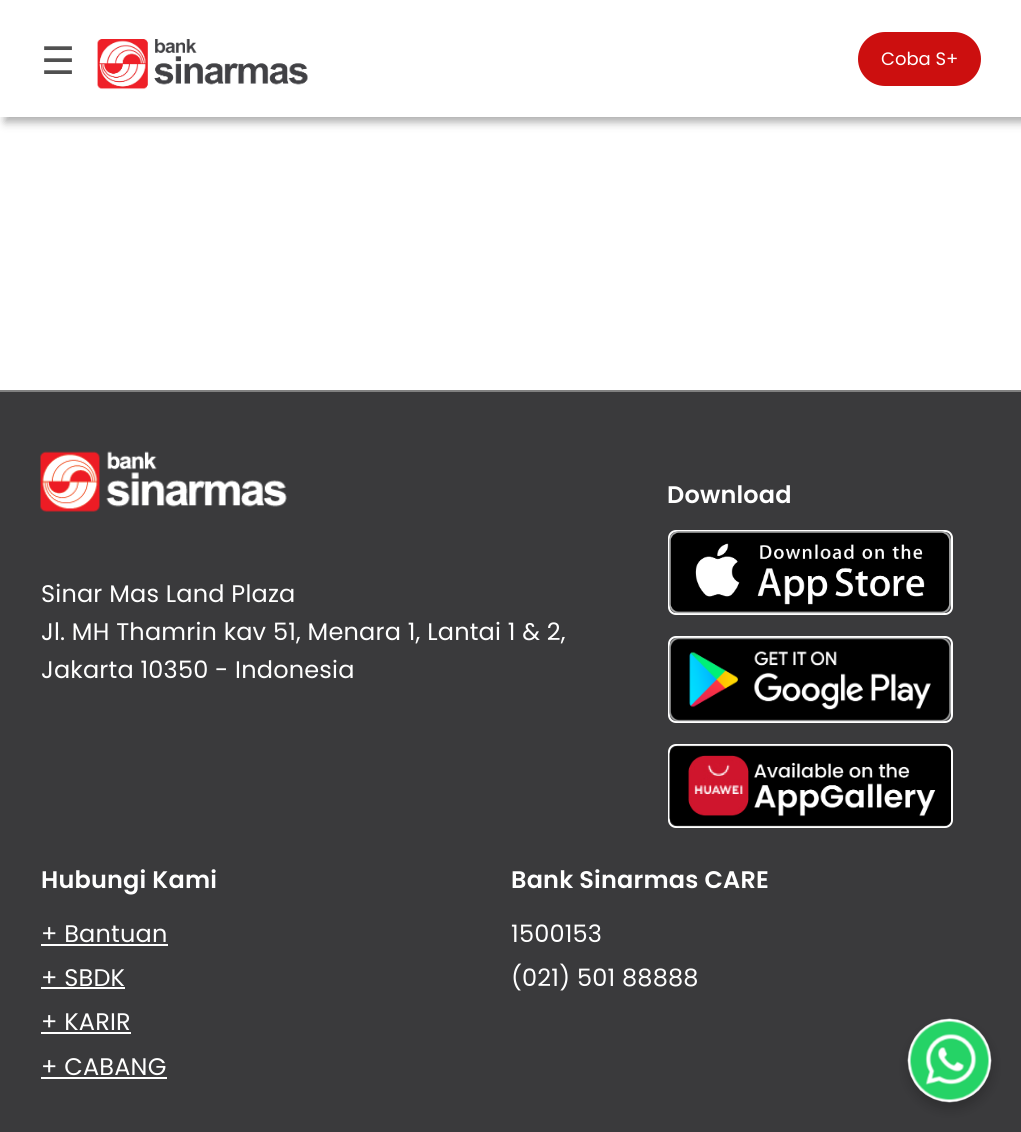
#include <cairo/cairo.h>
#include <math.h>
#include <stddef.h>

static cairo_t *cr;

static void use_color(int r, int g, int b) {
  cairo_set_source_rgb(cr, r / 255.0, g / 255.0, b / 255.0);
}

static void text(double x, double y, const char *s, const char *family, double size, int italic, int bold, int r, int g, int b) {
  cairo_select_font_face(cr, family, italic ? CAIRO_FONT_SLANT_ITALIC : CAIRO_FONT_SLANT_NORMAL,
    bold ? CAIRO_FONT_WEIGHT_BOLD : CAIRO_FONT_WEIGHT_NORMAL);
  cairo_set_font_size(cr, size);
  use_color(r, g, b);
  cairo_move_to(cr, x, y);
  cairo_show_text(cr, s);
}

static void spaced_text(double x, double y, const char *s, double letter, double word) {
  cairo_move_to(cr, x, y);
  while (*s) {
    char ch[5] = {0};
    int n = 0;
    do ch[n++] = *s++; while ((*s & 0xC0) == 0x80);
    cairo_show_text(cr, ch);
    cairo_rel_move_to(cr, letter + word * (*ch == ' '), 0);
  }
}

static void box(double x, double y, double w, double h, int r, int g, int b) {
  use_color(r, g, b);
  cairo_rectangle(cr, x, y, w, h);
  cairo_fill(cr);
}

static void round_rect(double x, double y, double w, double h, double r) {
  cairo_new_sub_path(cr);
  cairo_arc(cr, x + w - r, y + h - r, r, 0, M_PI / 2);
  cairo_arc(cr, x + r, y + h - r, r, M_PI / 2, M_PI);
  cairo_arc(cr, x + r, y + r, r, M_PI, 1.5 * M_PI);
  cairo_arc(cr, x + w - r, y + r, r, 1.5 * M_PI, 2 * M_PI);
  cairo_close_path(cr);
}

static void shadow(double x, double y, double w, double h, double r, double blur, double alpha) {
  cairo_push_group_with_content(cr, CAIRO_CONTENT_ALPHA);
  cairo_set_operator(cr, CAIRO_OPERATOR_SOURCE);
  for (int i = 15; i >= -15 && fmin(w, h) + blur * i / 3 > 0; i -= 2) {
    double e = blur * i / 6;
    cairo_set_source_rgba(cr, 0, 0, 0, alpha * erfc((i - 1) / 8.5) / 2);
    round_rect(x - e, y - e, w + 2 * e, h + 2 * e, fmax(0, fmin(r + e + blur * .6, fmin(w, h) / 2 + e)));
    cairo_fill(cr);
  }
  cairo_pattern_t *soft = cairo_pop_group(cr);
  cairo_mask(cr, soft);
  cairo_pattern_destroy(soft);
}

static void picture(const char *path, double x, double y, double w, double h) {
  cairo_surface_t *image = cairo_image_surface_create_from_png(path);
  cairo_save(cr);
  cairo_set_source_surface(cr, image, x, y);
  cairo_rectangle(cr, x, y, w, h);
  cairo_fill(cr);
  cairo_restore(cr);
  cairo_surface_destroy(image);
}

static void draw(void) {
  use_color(255, 255, 255);
  cairo_paint(cr);
  use_color(172, 172, 172);
  shadow(5, 5, 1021, 117, 0, 4.5, 1);
  box(0, 0, 1021, 117, 255, 255, 255);
  picture("img_01.png", 97, 39, 211, 51);
  use_color(204, 15, 15);
  round_rect(858, 32, 123, 54, 27);
  cairo_fill(cr);
  box(0, 390, 1021, 2, 128, 128, 128);
  box(0, 392, 1021, 740, 58, 58, 60);
  round_rect(669, 531, 283, 83, 7);
  use_color(255, 255, 255);
  cairo_stroke(cr);
  picture("img_02.png", 669, 531, 282, 83);
  round_rect(669, 637, 283, 85, 7);
  cairo_stroke(cr);
  picture("img_03.png", 669, 637, 282, 85);
  round_rect(669, 745, 283, 82, 7);
  cairo_stroke(cr);
  picture("img_04.png", 669, 745, 282, 82);
  picture("img_05.png", 40, 451, 247, 61);
  box(41, 944, 127, 2, 255, 255, 255);
  box(41, 987, 84, 2, 255, 255, 255);
  box(41, 1032, 90, 2, 255, 255, 255);
  box(41, 1077, 126, 2, 255, 255, 255);
  use_color(0, 0, 0);
  shadow(908, 1025, 84, 84, 42, 6, 0.2);
  picture("img_06.png", 907, 1018, 85, 85);
  text(41, 74, "☰", "DejaVu Sans", 38, 0, 0, 80, 80, 80);
  text(881, 65, "Coba S+", "Poppins", 18, 0, 0, 255, 255, 255);
  cairo_select_font_face(cr, "Poppins SemiBold", CAIRO_FONT_SLANT_NORMAL, CAIRO_FONT_WEIGHT_NORMAL);
  cairo_set_font_size(cr, 24);
  spaced_text(667, 503, "Download", 0.2, 0);
  cairo_select_font_face(cr, "Poppins", CAIRO_FONT_SLANT_NORMAL, CAIRO_FONT_WEIGHT_NORMAL);
  spaced_text(41, 602, "Sinar Mas Land Plaza", 0.2, 0);
  spaced_text(41, 640, "Jl. MH Thamrin kav 51, Menara 1, Lantai 1 & 2,", 0.2, 0);
  spaced_text(41, 678, "Jakarta 10350 - Indonesia", 0.2, 0);
  cairo_select_font_face(cr, "Poppins SemiBold", CAIRO_FONT_SLANT_NORMAL, CAIRO_FONT_WEIGHT_NORMAL);
  spaced_text(41, 888, "Hubungi Kami", 0.2, 0);
  cairo_select_font_face(cr, "Poppins", CAIRO_FONT_SLANT_NORMAL, CAIRO_FONT_WEIGHT_NORMAL);
  spaced_text(41, 942, "+ Bantuan", 0.2, 0);
  spaced_text(41, 986, "+ SBDK", 0.2, 0);
  spaced_text(41, 1030, "+ KARIR", 0.2, 0);
  spaced_text(41, 1075, "+ CABANG", 0.2, 0);
  cairo_select_font_face(cr, "Poppins SemiBold", CAIRO_FONT_SLANT_NORMAL, CAIRO_FONT_WEIGHT_NORMAL);
  spaced_text(511, 888, "Bank Sinarmas CARE", 0.2, 0);
  cairo_select_font_face(cr, "Poppins", CAIRO_FONT_SLANT_NORMAL, CAIRO_FONT_WEIGHT_NORMAL);
  spaced_text(511, 942, "1500153", 0.2, 0);
  spaced_text(511, 986, "(021) 501 88888", 0.2, 0);
}

int main(void) {
  cairo_surface_t *surface = cairo_image_surface_create(CAIRO_FORMAT_RGB24, 1021, 1132);
  cr = cairo_create(surface);
  cairo_font_options_t *options = cairo_font_options_create();
  cairo_font_options_set_hint_metrics(options, CAIRO_HINT_METRICS_OFF);
  cairo_font_options_set_hint_style(options, CAIRO_HINT_STYLE_NONE);
  cairo_set_font_options(cr, options);
  cairo_set_miter_limit(cr, 4);
  draw();
  cairo_surface_write_to_png(surface, "out.png");
  cairo_font_options_destroy(options);
  cairo_destroy(cr);
  cairo_surface_destroy(surface);
  return 0;
}
